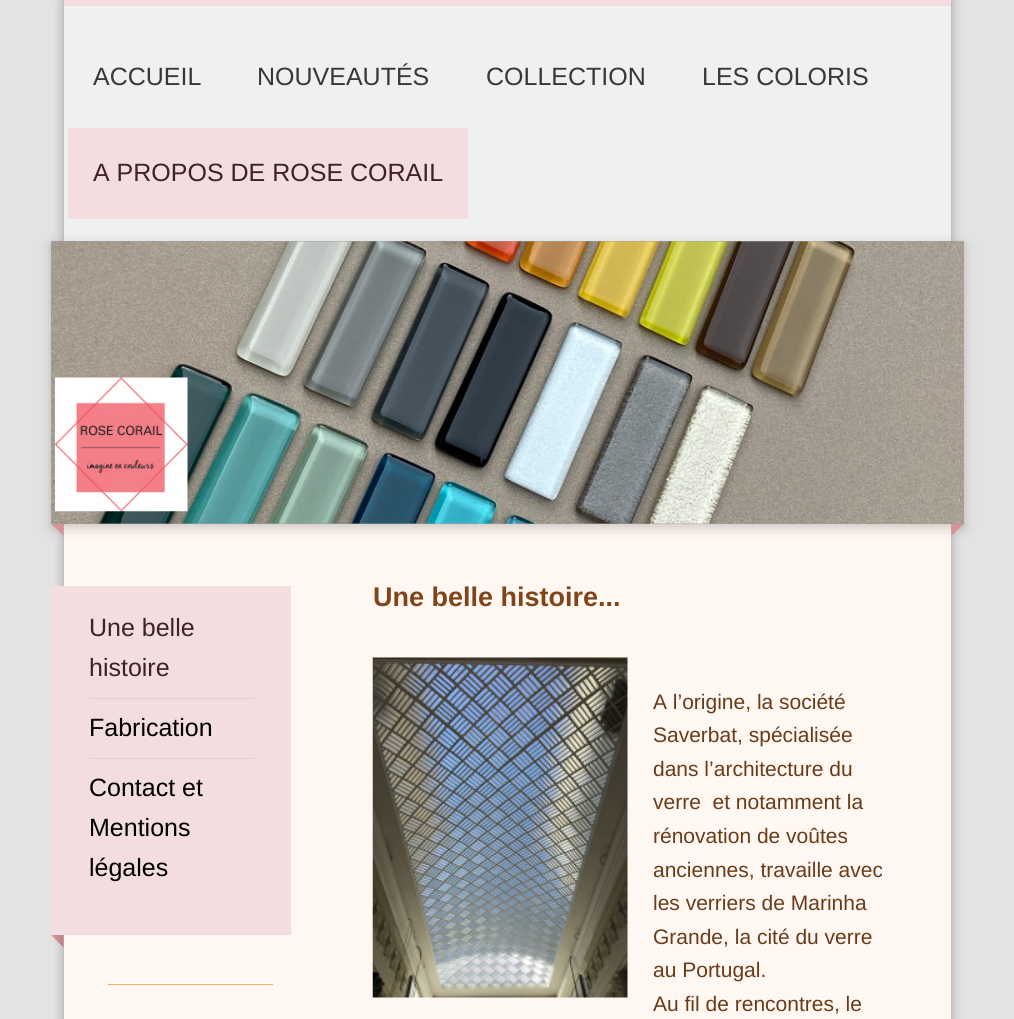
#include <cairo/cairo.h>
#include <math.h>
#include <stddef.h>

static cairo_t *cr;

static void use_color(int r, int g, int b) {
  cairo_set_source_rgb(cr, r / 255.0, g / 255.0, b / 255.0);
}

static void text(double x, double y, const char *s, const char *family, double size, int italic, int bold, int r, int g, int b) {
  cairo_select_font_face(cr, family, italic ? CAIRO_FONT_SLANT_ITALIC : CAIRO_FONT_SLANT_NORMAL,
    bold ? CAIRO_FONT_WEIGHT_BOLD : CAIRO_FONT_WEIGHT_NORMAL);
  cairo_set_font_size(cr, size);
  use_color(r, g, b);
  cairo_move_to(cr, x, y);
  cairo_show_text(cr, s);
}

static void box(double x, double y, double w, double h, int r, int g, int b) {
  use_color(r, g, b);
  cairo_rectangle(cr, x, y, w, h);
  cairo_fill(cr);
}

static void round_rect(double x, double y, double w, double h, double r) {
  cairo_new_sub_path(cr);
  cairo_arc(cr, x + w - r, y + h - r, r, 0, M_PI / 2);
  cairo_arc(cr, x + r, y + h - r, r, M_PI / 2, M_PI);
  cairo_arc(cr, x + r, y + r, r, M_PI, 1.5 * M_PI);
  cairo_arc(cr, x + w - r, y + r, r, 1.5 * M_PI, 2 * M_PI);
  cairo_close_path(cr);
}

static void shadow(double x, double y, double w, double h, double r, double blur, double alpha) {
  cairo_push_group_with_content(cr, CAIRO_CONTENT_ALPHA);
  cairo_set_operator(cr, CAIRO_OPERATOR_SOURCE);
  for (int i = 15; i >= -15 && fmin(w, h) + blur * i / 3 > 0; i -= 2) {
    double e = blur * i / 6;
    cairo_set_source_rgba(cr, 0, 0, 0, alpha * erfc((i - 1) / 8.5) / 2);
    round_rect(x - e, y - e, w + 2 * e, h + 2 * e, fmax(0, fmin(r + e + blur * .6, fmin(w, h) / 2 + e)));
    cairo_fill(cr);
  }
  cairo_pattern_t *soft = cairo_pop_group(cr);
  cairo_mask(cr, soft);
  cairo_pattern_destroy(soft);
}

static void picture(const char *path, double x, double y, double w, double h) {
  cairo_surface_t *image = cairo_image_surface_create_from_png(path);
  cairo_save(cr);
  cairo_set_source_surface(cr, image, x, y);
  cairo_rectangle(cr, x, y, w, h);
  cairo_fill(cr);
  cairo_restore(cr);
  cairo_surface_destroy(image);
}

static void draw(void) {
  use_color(227, 227, 227);
  cairo_paint(cr);
  use_color(216, 146, 152);
  cairo_new_path(cr);
  cairo_move_to(cr, 63.5, 922.5);
  cairo_line_to(cr, 63.5, 947.5);
  cairo_line_to(cr, 51, 935);
  cairo_close_path(cr);
  cairo_fill(cr);
  use_color(0, 0, 0);
  shadow(64, 0, 887, 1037, 0, 6, 0.3);
  box(64, 6, 887, 235, 240, 240, 240);
  box(64, 0, 887, 6, 243, 221, 223);
  box(68, 128, 400, 91, 243, 221, 223);
  box(64, 524, 887, 495, 255, 247, 241);
  use_color(0, 0, 0);
  shadow(51, 245, 913, 283, 0, 6, 0.2);
  use_color(216, 146, 152);
  cairo_new_path(cr);
  cairo_move_to(cr, 63.5, 511);
  cairo_line_to(cr, 63.5, 536);
  cairo_line_to(cr, 51, 523.5);
  cairo_close_path(cr);
  cairo_fill(cr);
  cairo_new_path(cr);
  cairo_move_to(cr, 951.5, 536);
  cairo_line_to(cr, 951.5, 511);
  cairo_line_to(cr, 964, 523.5);
  cairo_close_path(cr);
  cairo_fill(cr);
  box(51, 241, 913, 283, 160, 160, 160);
  picture("img_01.png", 51, 241, 913, 283);
  picture("img_02.png", 55, 377, 133, 135);
  box(51, 586, 240, 349, 243, 221, 223);
  box(89, 698, 165, 1, 237, 204, 207);
  box(89, 758, 165, 1, 237, 204, 207);
  box(108, 984, 165, 1, 255, 168, 103);
  picture("img_03.png", 372, 657, 256, 341);
  text(93, 85, "ACCUEIL", "Liberation Sans", 25, 0, 0, 56, 56, 56);
  text(257, 85, "NOUVEAUTÉS", "Liberation Sans", 25, 0, 0, 56, 56, 56);
  text(486, 85, "COLLECTION", "Liberation Sans", 25, 0, 0, 56, 56, 56);
  text(702, 85, "LES COLORIS", "Liberation Sans", 25, 0, 0, 56, 56, 56);
  text(93, 181, "A PROPOS DE ROSE CORAIL", "Liberation Sans", 25, 0, 0, 62, 35, 38);
  text(89, 636, "Une belle", "Liberation Sans", 25, 0, 0, 62, 35, 38);
  text(89, 676, "histoire", "Liberation Sans", 25, 0, 0, 62, 35, 38);
  text(89, 736, "Fabrication", "Liberation Sans", 25, 0, 0, 0, 0, 0);
  text(89, 796, "Contact et", "Liberation Sans", 25, 0, 0, 0, 0, 0);
  text(89, 836, "Mentions", "Liberation Sans", 25, 0, 0, 0, 0, 0);
  text(89, 876, "légales", "Liberation Sans", 25, 0, 0, 0, 0, 0);
  text(373, 606, "Une belle histoire...", "Liberation Sans", 27, 0, 1, 128, 68, 24);
  text(653, 709, "A l’origine, la société", "Liberation Sans", 21, 0, 0, 105, 59, 24);
  text(653, 742, "Saverbat, spécialisée", "Liberation Sans", 21, 0, 0, 105, 59, 24);
  text(653, 776, "dans l’architecture du", "Liberation Sans", 21, 0, 0, 105, 59, 24);
  text(653, 809, "verre  et notamment la", "Liberation Sans", 21, 0, 0, 105, 59, 24);
  text(653, 843, "rénovation de voûtes", "Liberation Sans", 21, 0, 0, 105, 59, 24);
  text(653, 877, "anciennes, travaille avec", "Liberation Sans", 21, 0, 0, 105, 59, 24);
  text(653, 910, "les verriers de Marinha", "Liberation Sans", 21, 0, 0, 105, 59, 24);
  text(653, 944, "Grande, la cité du verre", "Liberation Sans", 21, 0, 0, 105, 59, 24);
  text(653, 977, "au Portugal.", "Liberation Sans", 21, 0, 0, 105, 59, 24);
  text(653, 1011, "Au fil de rencontres, le", "Liberation Sans", 21, 0, 0, 105, 59, 24);
}

int main(void) {
  cairo_surface_t *surface = cairo_image_surface_create(CAIRO_FORMAT_RGB24, 1014, 1019);
  cr = cairo_create(surface);
  cairo_font_options_t *options = cairo_font_options_create();
  cairo_font_options_set_hint_metrics(options, CAIRO_HINT_METRICS_OFF);
  cairo_font_options_set_hint_style(options, CAIRO_HINT_STYLE_NONE);
  cairo_set_font_options(cr, options);
  cairo_set_miter_limit(cr, 4);
  draw();
  cairo_surface_write_to_png(surface, "out.png");
  cairo_font_options_destroy(options);
  cairo_destroy(cr);
  cairo_surface_destroy(surface);
  return 0;
}
